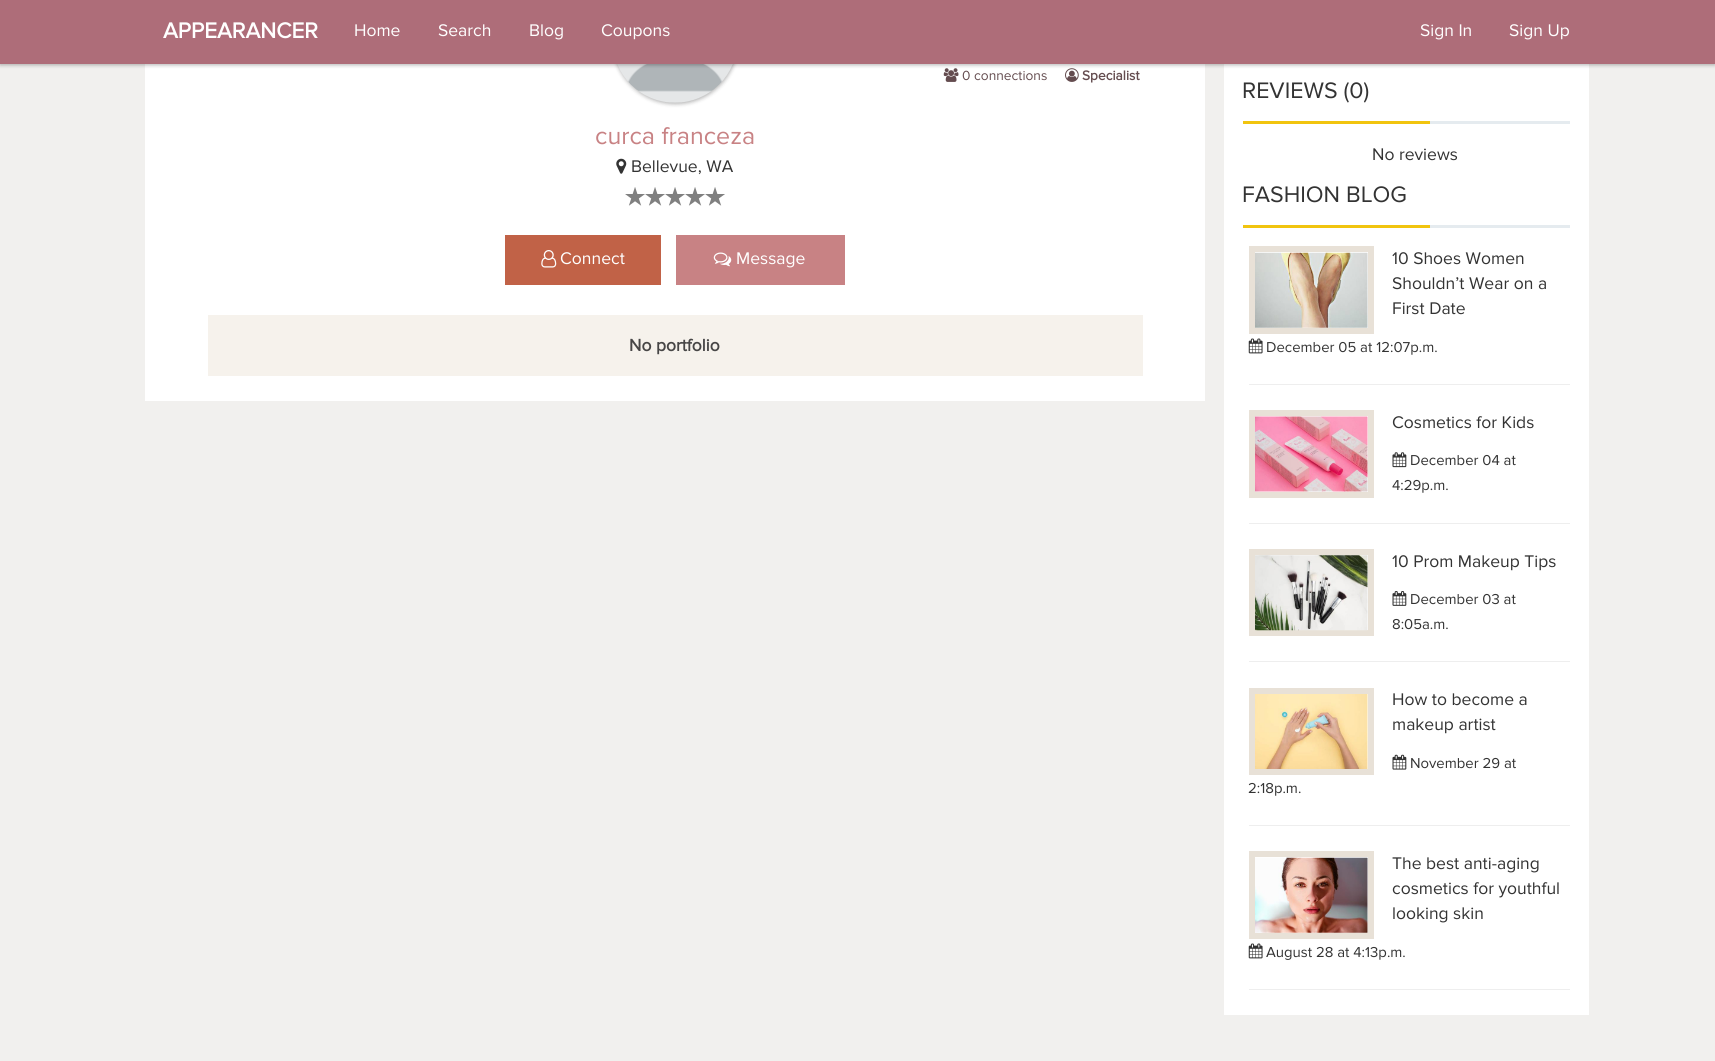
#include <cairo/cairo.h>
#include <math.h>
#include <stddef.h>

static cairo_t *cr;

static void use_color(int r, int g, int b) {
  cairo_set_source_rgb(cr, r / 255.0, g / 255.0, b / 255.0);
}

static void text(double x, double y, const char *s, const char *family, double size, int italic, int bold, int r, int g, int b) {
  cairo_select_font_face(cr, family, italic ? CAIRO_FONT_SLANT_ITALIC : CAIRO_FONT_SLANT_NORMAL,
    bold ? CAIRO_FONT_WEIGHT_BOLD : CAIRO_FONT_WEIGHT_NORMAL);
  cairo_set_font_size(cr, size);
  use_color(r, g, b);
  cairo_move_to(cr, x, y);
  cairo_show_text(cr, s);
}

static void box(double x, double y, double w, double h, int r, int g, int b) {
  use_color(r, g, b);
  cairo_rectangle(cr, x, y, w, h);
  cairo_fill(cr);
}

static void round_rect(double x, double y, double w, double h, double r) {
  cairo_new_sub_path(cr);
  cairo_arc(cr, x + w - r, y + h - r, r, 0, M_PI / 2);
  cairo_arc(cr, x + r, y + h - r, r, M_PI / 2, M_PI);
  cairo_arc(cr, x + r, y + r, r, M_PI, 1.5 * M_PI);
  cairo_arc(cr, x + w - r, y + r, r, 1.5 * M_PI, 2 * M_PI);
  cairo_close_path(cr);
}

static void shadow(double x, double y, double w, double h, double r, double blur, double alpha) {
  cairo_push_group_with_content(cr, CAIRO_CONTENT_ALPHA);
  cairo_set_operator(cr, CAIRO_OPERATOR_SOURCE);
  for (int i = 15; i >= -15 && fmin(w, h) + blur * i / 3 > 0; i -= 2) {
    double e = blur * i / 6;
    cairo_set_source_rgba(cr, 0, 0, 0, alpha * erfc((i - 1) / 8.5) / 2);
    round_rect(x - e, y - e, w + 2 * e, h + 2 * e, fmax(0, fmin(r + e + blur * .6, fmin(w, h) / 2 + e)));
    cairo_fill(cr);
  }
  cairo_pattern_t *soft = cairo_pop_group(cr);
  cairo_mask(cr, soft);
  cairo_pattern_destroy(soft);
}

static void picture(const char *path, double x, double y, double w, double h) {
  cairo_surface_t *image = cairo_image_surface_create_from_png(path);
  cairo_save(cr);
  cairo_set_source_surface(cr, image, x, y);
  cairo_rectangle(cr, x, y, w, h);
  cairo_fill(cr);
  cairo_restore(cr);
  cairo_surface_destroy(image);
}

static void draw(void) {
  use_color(241, 240, 238);
  cairo_paint(cr);
  box(145, 64, 1060, 337, 255, 255, 255);
  use_color(0, 0, 0);
  shadow(613, -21, 125, 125, 62.5, 2, 0.3);
  picture("img_01.png", 617, 64, 116, 39);
  picture("img_02.png", 943, 68, 16, 14);
  picture("img_03.png", 1065, 68, 14, 14);
  box(1224, 64, 365, 951, 255, 255, 255);
  use_color(0, 0, 0);
  shadow(0, 1, 1715, 64, 0, 2, 0.3);
  box(0, 0, 1715, 64, 174, 109, 121);
  picture("img_04.png", 616, 158, 11, 16);
  picture("img_05.png", 625, 187, 20, 19);
  picture("img_05.png", 645, 187, 20, 19);
  picture("img_05.png", 665, 187, 20, 19);
  picture("img_05.png", 685, 187, 20, 19);
  picture("img_05.png", 705, 187, 20, 19);
  box(505, 235, 156, 50, 193, 98, 71);
  picture("img_06.png", 541, 250, 16, 18);
  box(676, 235, 169, 50, 200, 130, 132);
  picture("img_07.png", 713, 252, 19, 15);
  box(208, 315, 935, 61, 246, 242, 236);
  box(1430, 121, 140, 3, 229, 235, 239);
  box(1243, 121, 187, 3, 241, 196, 15);
  box(1430, 225, 140, 3, 229, 235, 239);
  box(1243, 225, 187, 3, 241, 196, 15);
  cairo_rectangle(cr, 1252, 249, 119, 82);
  use_color(232, 225, 215);
  cairo_set_line_width(cr, 6);
  cairo_stroke(cr);
  picture("img_08.png", 1255, 252, 113, 76);
  picture("img_09.png", 1248, 338, 15, 16);
  box(1249, 384, 321, 1, 238, 238, 238);
  cairo_rectangle(cr, 1252, 413, 119, 82);
  use_color(232, 225, 215);
  cairo_stroke(cr);
  picture("img_10.png", 1255, 416, 113, 76);
  picture("img_11.png", 1392, 452, 15, 16);
  box(1249, 523, 321, 1, 238, 238, 238);
  cairo_rectangle(cr, 1252, 552, 119, 81);
  use_color(232, 225, 215);
  cairo_stroke(cr);
  picture("img_12.png", 1255, 555, 113, 76);
  picture("img_13.png", 1392, 591, 15, 15);
  box(1249, 661, 321, 1, 238, 238, 238);
  cairo_rectangle(cr, 1252, 691, 119, 81);
  use_color(232, 225, 215);
  cairo_stroke(cr);
  picture("img_14.png", 1255, 694, 113, 75);
  picture("img_15.png", 1392, 754, 15, 16);
  box(1249, 825, 321, 1, 238, 238, 238);
  cairo_rectangle(cr, 1252, 854, 119, 82);
  use_color(232, 225, 215);
  cairo_stroke(cr);
  picture("img_16.png", 1255, 857, 113, 76);
  picture("img_09.png", 1248, 943, 15, 16);
  box(1249, 989, 321, 1, 238, 238, 238);
  text(163, 38, "APPEARANCER", "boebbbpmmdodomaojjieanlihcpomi", 22.5, 0, 1, 255, 255, 255);
  text(354, 36, "Home", "boebbbpmmdodomaojjieanlihcpomi", 17.5, 0, 0, 255, 255, 255);
  text(438, 36, "Search", "boebbbpmmdodomaojjieanlihcpomi", 17.5, 0, 0, 255, 255, 255);
  text(529, 36, "Blog", "boebbbpmmdodomaojjieanlihcpomi", 17.5, 0, 0, 255, 255, 255);
  text(601, 36, "Coupons", "boebbbpmmdodomaojjieanlihcpomi", 17.5, 0, 0, 255, 255, 255);
  text(1420, 36, "Sign In", "boebbbpmmdodomaojjieanlihcpomi", 17.5, 0, 0, 255, 255, 255);
  text(1509, 36, "Sign Up", "boebbbpmmdodomaojjieanlihcpomi", 17.5, 0, 0, 255, 255, 255);
  text(962, 80, "0 connections", "boebbbpmmdodomaojjieanlihcpomi", 13.75, 0, 0, 100, 76, 79);
  text(1082, 80, "Specialist", "boebbbpmmdodomaojjieanlihcpomi", 13.75, 0, 1, 100, 76, 79);
  text(595, 144, "curca franceza", "boebbbpmmdodomaojjieanlihcpomi", 25, 0, 0, 200, 130, 132);
  text(631, 172, "Bellevue, WA", "boebbbpmmdodomaojjieanlihcpomi", 17.5, 0, 0, 51, 51, 51);
  text(560, 264, "Connect", "boebbbpmmdodomaojjieanlihcpomi", 17.5, 0, 0, 255, 255, 255);
  text(736, 264, "Message", "boebbbpmmdodomaojjieanlihcpomi", 17.5, 0, 0, 255, 255, 255);
  text(629, 351, "No portfolio", "boebbbpmmdodomaojjieanlihcpomi", 17.5, 0, 1, 71, 70, 70);
  text(1242, 98, "REVIEWS (0)", "boebbbpmmdodomaojjieanlihcpomi", 23.25, 0, 0, 51, 51, 51);
  text(1372, 160, "No reviews", "boebbbpmmdodomaojjieanlihcpomi", 17.5, 0, 0, 51, 51, 51);
  text(1242, 202, "FASHION BLOG", "boebbbpmmdodomaojjieanlihcpomi", 23.25, 0, 0, 51, 51, 51);
  text(1392, 264, "10 Shoes Women", "boebbbpmmdodomaojjieanlihcpomi", 17.5, 0, 0, 51, 51, 51);
  text(1392, 289, "Shouldn’t Wear on a", "boebbbpmmdodomaojjieanlihcpomi", 17.5, 0, 0, 51, 51, 51);
  text(1392, 314, "First Date", "boebbbpmmdodomaojjieanlihcpomi", 17.5, 0, 0, 51, 51, 51);
  text(1266, 352, "December 05 at 12:07p.m.", "boebbbpmmdodomaojjieanlihcpomi", 14.9, 0, 0, 51, 51, 51);
  text(1392, 428, "Cosmetics for Kids", "boebbbpmmdodomaojjieanlihcpomi", 17.5, 0, 0, 51, 51, 51);
  text(1410, 465, "December 04 at", "boebbbpmmdodomaojjieanlihcpomi", 14.9, 0, 0, 51, 51, 51);
  text(1392, 490, "4:29p.m.", "boebbbpmmdodomaojjieanlihcpomi", 14.9, 0, 0, 51, 51, 51);
  text(1392, 567, "10 Prom Makeup Tips", "boebbbpmmdodomaojjieanlihcpomi", 17.5, 0, 0, 51, 51, 51);
  text(1410, 604, "December 03 at", "boebbbpmmdodomaojjieanlihcpomi", 14.9, 0, 0, 51, 51, 51);
  text(1392, 629, "8:05a.m.", "boebbbpmmdodomaojjieanlihcpomi", 14.9, 0, 0, 51, 51, 51);
  text(1392, 705, "How to become a", "boebbbpmmdodomaojjieanlihcpomi", 17.5, 0, 0, 51, 51, 51);
  text(1392, 730, "makeup artist", "boebbbpmmdodomaojjieanlihcpomi", 17.5, 0, 0, 51, 51, 51);
  text(1410, 768, "November 29 at", "boebbbpmmdodomaojjieanlihcpomi", 14.9, 0, 0, 51, 51, 51);
  text(1248, 793, "2:18p.m.", "boebbbpmmdodomaojjieanlihcpomi", 14.9, 0, 0, 51, 51, 51);
  text(1392, 869, "The best anti-aging", "boebbbpmmdodomaojjieanlihcpomi", 17.5, 0, 0, 51, 51, 51);
  text(1392, 894, "cosmetics for youthful", "boebbbpmmdodomaojjieanlihcpomi", 17.5, 0, 0, 51, 51, 51);
  text(1392, 919, "looking skin", "boebbbpmmdodomaojjieanlihcpomi", 17.5, 0, 0, 51, 51, 51);
  text(1266, 957, "August 28 at 4:13p.m.", "boebbbpmmdodomaojjieanlihcpomi", 14.9, 0, 0, 51, 51, 51);
}

int main(void) {
  cairo_surface_t *surface = cairo_image_surface_create(CAIRO_FORMAT_RGB24, 1715, 1061);
  cr = cairo_create(surface);
  cairo_font_options_t *options = cairo_font_options_create();
  cairo_font_options_set_hint_metrics(options, CAIRO_HINT_METRICS_OFF);
  cairo_font_options_set_hint_style(options, CAIRO_HINT_STYLE_NONE);
  cairo_set_font_options(cr, options);
  cairo_set_miter_limit(cr, 4);
  draw();
  cairo_surface_write_to_png(surface, "out.png");
  cairo_font_options_destroy(options);
  cairo_destroy(cr);
  cairo_surface_destroy(surface);
  return 0;
}
